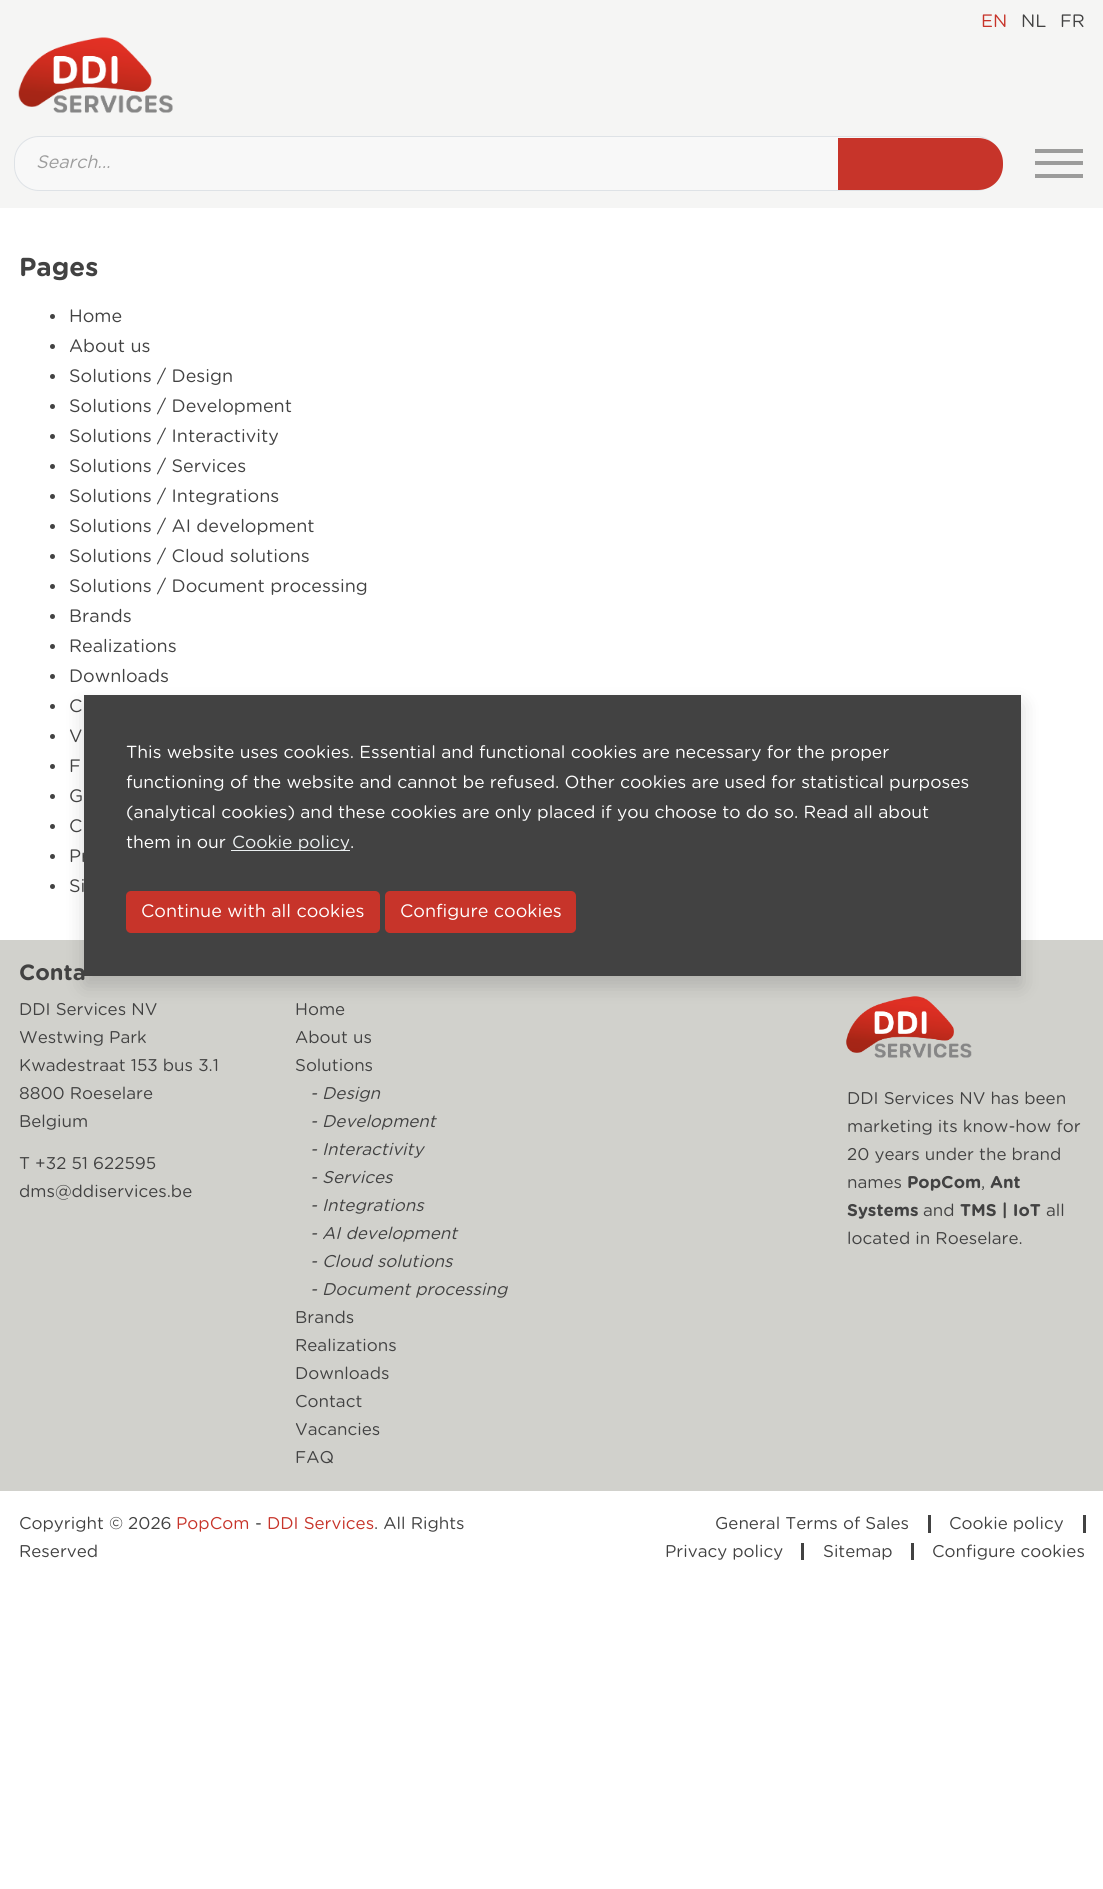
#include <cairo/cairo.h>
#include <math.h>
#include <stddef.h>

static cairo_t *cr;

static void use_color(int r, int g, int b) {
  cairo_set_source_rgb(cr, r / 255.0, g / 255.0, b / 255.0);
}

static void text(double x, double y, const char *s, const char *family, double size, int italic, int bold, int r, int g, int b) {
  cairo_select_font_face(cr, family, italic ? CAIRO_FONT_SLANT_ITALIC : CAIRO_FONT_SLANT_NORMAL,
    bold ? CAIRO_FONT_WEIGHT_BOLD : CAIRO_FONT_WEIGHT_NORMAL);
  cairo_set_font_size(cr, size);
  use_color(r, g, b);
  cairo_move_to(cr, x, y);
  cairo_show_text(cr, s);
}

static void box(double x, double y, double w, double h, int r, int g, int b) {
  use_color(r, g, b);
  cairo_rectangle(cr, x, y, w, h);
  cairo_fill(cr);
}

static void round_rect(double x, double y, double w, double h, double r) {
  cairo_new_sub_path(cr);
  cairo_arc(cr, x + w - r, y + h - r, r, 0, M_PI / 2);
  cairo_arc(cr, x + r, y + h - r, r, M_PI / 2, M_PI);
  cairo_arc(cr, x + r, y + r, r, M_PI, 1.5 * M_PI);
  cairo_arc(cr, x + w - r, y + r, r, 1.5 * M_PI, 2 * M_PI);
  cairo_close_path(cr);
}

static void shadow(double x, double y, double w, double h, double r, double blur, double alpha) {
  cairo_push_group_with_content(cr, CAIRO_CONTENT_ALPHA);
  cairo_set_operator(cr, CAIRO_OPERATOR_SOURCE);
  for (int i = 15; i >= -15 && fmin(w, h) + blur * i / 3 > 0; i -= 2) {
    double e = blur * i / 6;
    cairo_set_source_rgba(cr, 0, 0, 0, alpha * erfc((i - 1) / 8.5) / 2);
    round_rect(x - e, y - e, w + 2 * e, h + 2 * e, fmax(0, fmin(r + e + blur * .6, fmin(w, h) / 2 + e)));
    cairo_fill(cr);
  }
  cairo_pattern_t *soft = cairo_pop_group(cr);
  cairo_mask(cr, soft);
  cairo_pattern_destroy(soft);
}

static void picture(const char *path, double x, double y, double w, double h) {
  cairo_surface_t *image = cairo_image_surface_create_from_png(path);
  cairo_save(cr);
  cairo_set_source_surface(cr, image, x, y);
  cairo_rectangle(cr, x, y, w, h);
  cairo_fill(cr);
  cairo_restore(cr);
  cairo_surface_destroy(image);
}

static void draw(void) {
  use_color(255, 255, 255);
  cairo_paint(cr);
  box(0, 0, 1103, 208, 245, 245, 244);
  picture("img_01.png", 18, 37, 155, 76);
  use_color(248, 248, 248);
  round_rect(14.5, 136.5, 986, 54, 24.5);
  cairo_fill_preserve(cr);
  use_color(222, 226, 230);
  cairo_set_line_width(cr, 1);
  cairo_stroke(cr);
  use_color(199, 52, 42);
  cairo_new_path(cr);
  cairo_move_to(cr, 838, 138);
  cairo_line_to(cr, 978, 138);
  cairo_curve_to(cr, 992, 138, 1003, 149, 1003, 163);
  cairo_line_to(cr, 1003, 165);
  cairo_curve_to(cr, 1003, 179, 992, 190, 978, 190);
  cairo_line_to(cr, 838, 190);
  cairo_close_path(cr);
  cairo_fill(cr);
  box(1035, 149, 48, 4, 156, 156, 155);
  box(1035, 161, 48, 4, 156, 156, 155);
  box(1035, 174, 48, 4, 156, 156, 155);
  use_color(66, 66, 66);
  cairo_arc(cr, 52.5, 316.5, 2.5, 0, 2 * M_PI);
  cairo_fill(cr);
  cairo_arc(cr, 52.5, 346.5, 2.5, 0, 2 * M_PI);
  cairo_fill(cr);
  cairo_arc(cr, 52.5, 376.5, 2.5, 0, 2 * M_PI);
  cairo_fill(cr);
  cairo_arc(cr, 52.5, 406.5, 2.5, 0, 2 * M_PI);
  cairo_fill(cr);
  cairo_arc(cr, 52.5, 436.5, 2.5, 0, 2 * M_PI);
  cairo_fill(cr);
  cairo_arc(cr, 52.5, 466.5, 2.5, 0, 2 * M_PI);
  cairo_fill(cr);
  cairo_arc(cr, 52.5, 496.5, 2.5, 0, 2 * M_PI);
  cairo_fill(cr);
  cairo_arc(cr, 52.5, 526.5, 2.5, 0, 2 * M_PI);
  cairo_fill(cr);
  cairo_arc(cr, 52.5, 556.5, 2.5, 0, 2 * M_PI);
  cairo_fill(cr);
  cairo_arc(cr, 52.5, 586.5, 2.5, 0, 2 * M_PI);
  cairo_fill(cr);
  cairo_arc(cr, 52.5, 616.5, 2.5, 0, 2 * M_PI);
  cairo_fill(cr);
  cairo_arc(cr, 52.5, 646.5, 2.5, 0, 2 * M_PI);
  cairo_fill(cr);
  cairo_arc(cr, 52.5, 676.5, 2.5, 0, 2 * M_PI);
  cairo_fill(cr);
  cairo_arc(cr, 52.5, 706.5, 2.5, 0, 2 * M_PI);
  cairo_fill(cr);
  cairo_arc(cr, 52.5, 736.5, 2.5, 0, 2 * M_PI);
  cairo_fill(cr);
  cairo_arc(cr, 52.5, 766.5, 2.5, 0, 2 * M_PI);
  cairo_fill(cr);
  cairo_arc(cr, 52.5, 796.5, 2.5, 0, 2 * M_PI);
  cairo_fill(cr);
  cairo_arc(cr, 52.5, 826.5, 2.5, 0, 2 * M_PI);
  cairo_fill(cr);
  cairo_arc(cr, 52.5, 856.5, 2.5, 0, 2 * M_PI);
  cairo_fill(cr);
  cairo_arc(cr, 52.5, 886.5, 2.5, 0, 2 * M_PI);
  cairo_fill(cr);
  box(0, 940, 1103, 551, 209, 209, 204);
  picture("img_02.png", 846, 996, 126, 62);
  use_color(0, 0, 0);
  shadow(84, 705, 937, 281, 0, 10, 0.15);
  box(84, 695, 937, 281, 66, 66, 66);
  box(231, 850, 119, 1, 236, 240, 241);
  use_color(199, 52, 42);
  round_rect(126, 891, 254, 42, 5);
  cairo_fill(cr);
  round_rect(385, 891, 191, 42, 5);
  cairo_fill(cr);
  box(928, 1515, 3, 18, 66, 66, 66);
  box(1083, 1515, 3, 18, 66, 66, 66);
  box(801, 1543, 3, 17, 66, 66, 66);
  box(911, 1543, 3, 17, 66, 66, 66);
  text(981, 27, "EN", "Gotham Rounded", 18, 0, 0, 199, 52, 42);
  text(1021, 27, "NL", "Gotham Rounded", 18, 0, 0, 66, 66, 66);
  text(1060, 27, "FR", "Gotham Rounded", 18, 0, 0, 66, 66, 66);
  text(36, 168, "Search...", "Gotham Rounded", 18, 1, 0, 157, 157, 157);
  text(19, 276, "Pages", "Gotham Rounded", 26, 0, 1, 66, 66, 66);
  text(69, 322, "Home", "Gotham Rounded", 18, 0, 0, 66, 66, 66);
  text(69, 352, "About us", "Gotham Rounded", 18, 0, 0, 66, 66, 66);
  text(69, 382, "Solutions / Design", "Gotham Rounded", 18, 0, 0, 66, 66, 66);
  text(69, 412, "Solutions / Development", "Gotham Rounded", 18, 0, 0, 66, 66, 66);
  text(69, 442, "Solutions / Interactivity", "Gotham Rounded", 18, 0, 0, 66, 66, 66);
  text(69, 472, "Solutions / Services", "Gotham Rounded", 18, 0, 0, 66, 66, 66);
  text(69, 502, "Solutions / Integrations", "Gotham Rounded", 18, 0, 0, 66, 66, 66);
  text(69, 532, "Solutions / AI development", "Gotham Rounded", 18, 0, 0, 66, 66, 66);
  text(69, 562, "Solutions / Cloud solutions", "Gotham Rounded", 18, 0, 0, 66, 66, 66);
  text(69, 592, "Solutions / Document processing", "Gotham Rounded", 18, 0, 0, 66, 66, 66);
  text(69, 622, "Brands", "Gotham Rounded", 18, 0, 0, 66, 66, 66);
  text(69, 652, "Realizations", "Gotham Rounded", 18, 0, 0, 66, 66, 66);
  text(69, 682, "Downloads", "Gotham Rounded", 18, 0, 0, 66, 66, 66);
  text(69, 712, "C", "Gotham Rounded", 18, 0, 0, 66, 66, 66);
  text(69, 742, "V", "Gotham Rounded", 18, 0, 0, 66, 66, 66);
  text(69, 772, "F", "Gotham Rounded", 18, 0, 0, 66, 66, 66);
  text(69, 802, "G", "Gotham Rounded", 18, 0, 0, 66, 66, 66);
  text(69, 832, "C", "Gotham Rounded", 18, 0, 0, 66, 66, 66);
  text(69, 862, "Pr", "Gotham Rounded", 18, 0, 0, 66, 66, 66);
  text(69, 892, "Si", "Gotham Rounded", 18, 0, 0, 66, 66, 66);
  text(126, 758, "This website uses cookies. Essential and functional cookies are necessary for the proper", "Gotham Rounded", 17.5, 0, 0, 255, 255, 255);
  text(126, 788, "functioning of the website and cannot be refused. Other cookies are used for statistical purposes", "Gotham Rounded", 17.5, 0, 0, 255, 255, 255);
  text(126, 818, "(analytical cookies) and these cookies are only placed if you choose to do so. Read all about", "Gotham Rounded", 17.5, 0, 0, 255, 255, 255);
  text(126, 848, "them in our", "Gotham Rounded", 17.5, 0, 0, 255, 255, 255);
  text(232, 848, "Cookie policy", "Gotham Rounded", 17.5, 0, 0, 236, 240, 241);
  text(350, 848, ".", "Gotham Rounded", 17.5, 0, 0, 255, 255, 255);
  text(141, 917, "Continue with all cookies", "Gotham Rounded", 18, 0, 0, 255, 255, 255);
  text(400, 917, "Configure cookies", "Gotham Rounded", 18, 0, 0, 255, 255, 255);
  text(19, 980, "Conta", "Gotham Rounded", 22, 0, 1, 66, 66, 66);
  text(19, 1015, "DDI Services NV", "Gotham Rounded", 17, 0, 0, 66, 66, 66);
  text(19, 1043, "Westwing Park", "Gotham Rounded", 17, 0, 0, 66, 66, 66);
  text(19, 1071, "Kwadestraat 153 bus 3.1", "Gotham Rounded", 17, 0, 0, 66, 66, 66);
  text(19, 1099, "8800 Roeselare", "Gotham Rounded", 17, 0, 0, 66, 66, 66);
  text(19, 1127, "Belgium", "Gotham Rounded", 17, 0, 0, 66, 66, 66);
  text(19, 1169, "T +32 51 622595", "Gotham Rounded", 17, 0, 0, 66, 66, 66);
  text(19, 1197, "dms@ddiservices.be", "Gotham Rounded", 17, 0, 0, 66, 66, 66);
  text(295, 1015, "Home", "Gotham Rounded", 17, 0, 0, 66, 66, 66);
  text(295, 1043, "About us", "Gotham Rounded", 17, 0, 0, 66, 66, 66);
  text(295, 1071, "Solutions", "Gotham Rounded", 17, 0, 0, 66, 66, 66);
  text(310, 1099, "- Design", "Gotham Rounded", 17, 1, 0, 66, 66, 66);
  text(310, 1127, "- Development", "Gotham Rounded", 17, 1, 0, 66, 66, 66);
  text(310, 1155, "- Interactivity", "Gotham Rounded", 17, 1, 0, 66, 66, 66);
  text(310, 1183, "- Services", "Gotham Rounded", 17, 1, 0, 66, 66, 66);
  text(310, 1211, "- Integrations", "Gotham Rounded", 17, 1, 0, 66, 66, 66);
  text(310, 1239, "- AI development", "Gotham Rounded", 17, 1, 0, 66, 66, 66);
  text(310, 1267, "- Cloud solutions", "Gotham Rounded", 17, 1, 0, 66, 66, 66);
  text(310, 1295, "- Document processing", "Gotham Rounded", 17, 1, 0, 66, 66, 66);
  text(295, 1323, "Brands", "Gotham Rounded", 17, 0, 0, 66, 66, 66);
  text(295, 1351, "Realizations", "Gotham Rounded", 17, 0, 0, 66, 66, 66);
  text(295, 1379, "Downloads", "Gotham Rounded", 17, 0, 0, 66, 66, 66);
  text(295, 1407, "Contact", "Gotham Rounded", 17, 0, 0, 66, 66, 66);
  text(295, 1435, "Vacancies", "Gotham Rounded", 17, 0, 0, 66, 66, 66);
  text(295, 1463, "FAQ", "Gotham Rounded", 17, 0, 0, 66, 66, 66);
  text(847, 1104, "DDI Services NV has been", "Gotham Rounded", 17, 0, 0, 66, 66, 66);
  text(847, 1132, "marketing its know-how for", "Gotham Rounded", 17, 0, 0, 66, 66, 66);
  text(847, 1160, "20 years under the brand", "Gotham Rounded", 17, 0, 0, 66, 66, 66);
  text(847, 1188, "names", "Gotham Rounded", 17, 0, 0, 66, 66, 66);
  text(907, 1188, "PopCom", "Gotham Rounded", 17, 0, 1, 66, 66, 66);
  text(981, 1188, ",", "Gotham Rounded", 17, 0, 0, 66, 66, 66);
  text(990, 1188, "Ant", "Gotham Rounded", 17, 0, 1, 66, 66, 66);
  text(847, 1216, "Systems", "Gotham Rounded", 17, 0, 1, 66, 66, 66);
  text(923, 1216, "and", "Gotham Rounded", 17, 0, 0, 66, 66, 66);
  text(960, 1216, "TMS | IoT", "Gotham Rounded", 17, 0, 1, 66, 66, 66);
  text(1046, 1216, "all", "Gotham Rounded", 17, 0, 0, 66, 66, 66);
  text(847, 1244, "located in Roeselare.", "Gotham Rounded", 17, 0, 0, 66, 66, 66);
  text(19, 1529, "Copyright © 2026", "Gotham Rounded", 17, 0, 0, 66, 66, 66);
  text(176, 1529, "PopCom", "Gotham Rounded", 17, 0, 0, 199, 52, 42);
  text(255, 1529, "-", "Gotham Rounded", 17, 0, 0, 66, 66, 66);
  text(267, 1529, "DDI Services", "Gotham Rounded", 17, 0, 0, 199, 52, 42);
  text(374, 1529, ". All Rights", "Gotham Rounded", 17, 0, 0, 66, 66, 66);
  text(19, 1557, "Reserved", "Gotham Rounded", 17, 0, 0, 66, 66, 66);
  text(715, 1529, "General Terms of Sales", "Gotham Rounded", 17, 0, 0, 66, 66, 66);
  text(949, 1529, "Cookie policy", "Gotham Rounded", 17, 0, 0, 66, 66, 66);
  text(665, 1557, "Privacy policy", "Gotham Rounded", 17, 0, 0, 66, 66, 66);
  text(823, 1557, "Sitemap", "Gotham Rounded", 17, 0, 0, 66, 66, 66);
  text(932, 1557, "Configure cookies", "Gotham Rounded", 17, 0, 0, 66, 66, 66);
}

int main(void) {
  cairo_surface_t *surface = cairo_image_surface_create(CAIRO_FORMAT_RGB24, 1103, 1889);
  cr = cairo_create(surface);
  cairo_font_options_t *options = cairo_font_options_create();
  cairo_font_options_set_hint_metrics(options, CAIRO_HINT_METRICS_OFF);
  cairo_font_options_set_hint_style(options, CAIRO_HINT_STYLE_NONE);
  cairo_set_font_options(cr, options);
  cairo_set_miter_limit(cr, 4);
  draw();
  cairo_surface_write_to_png(surface, "out.png");
  cairo_font_options_destroy(options);
  cairo_destroy(cr);
  cairo_surface_destroy(surface);
  return 0;
}
